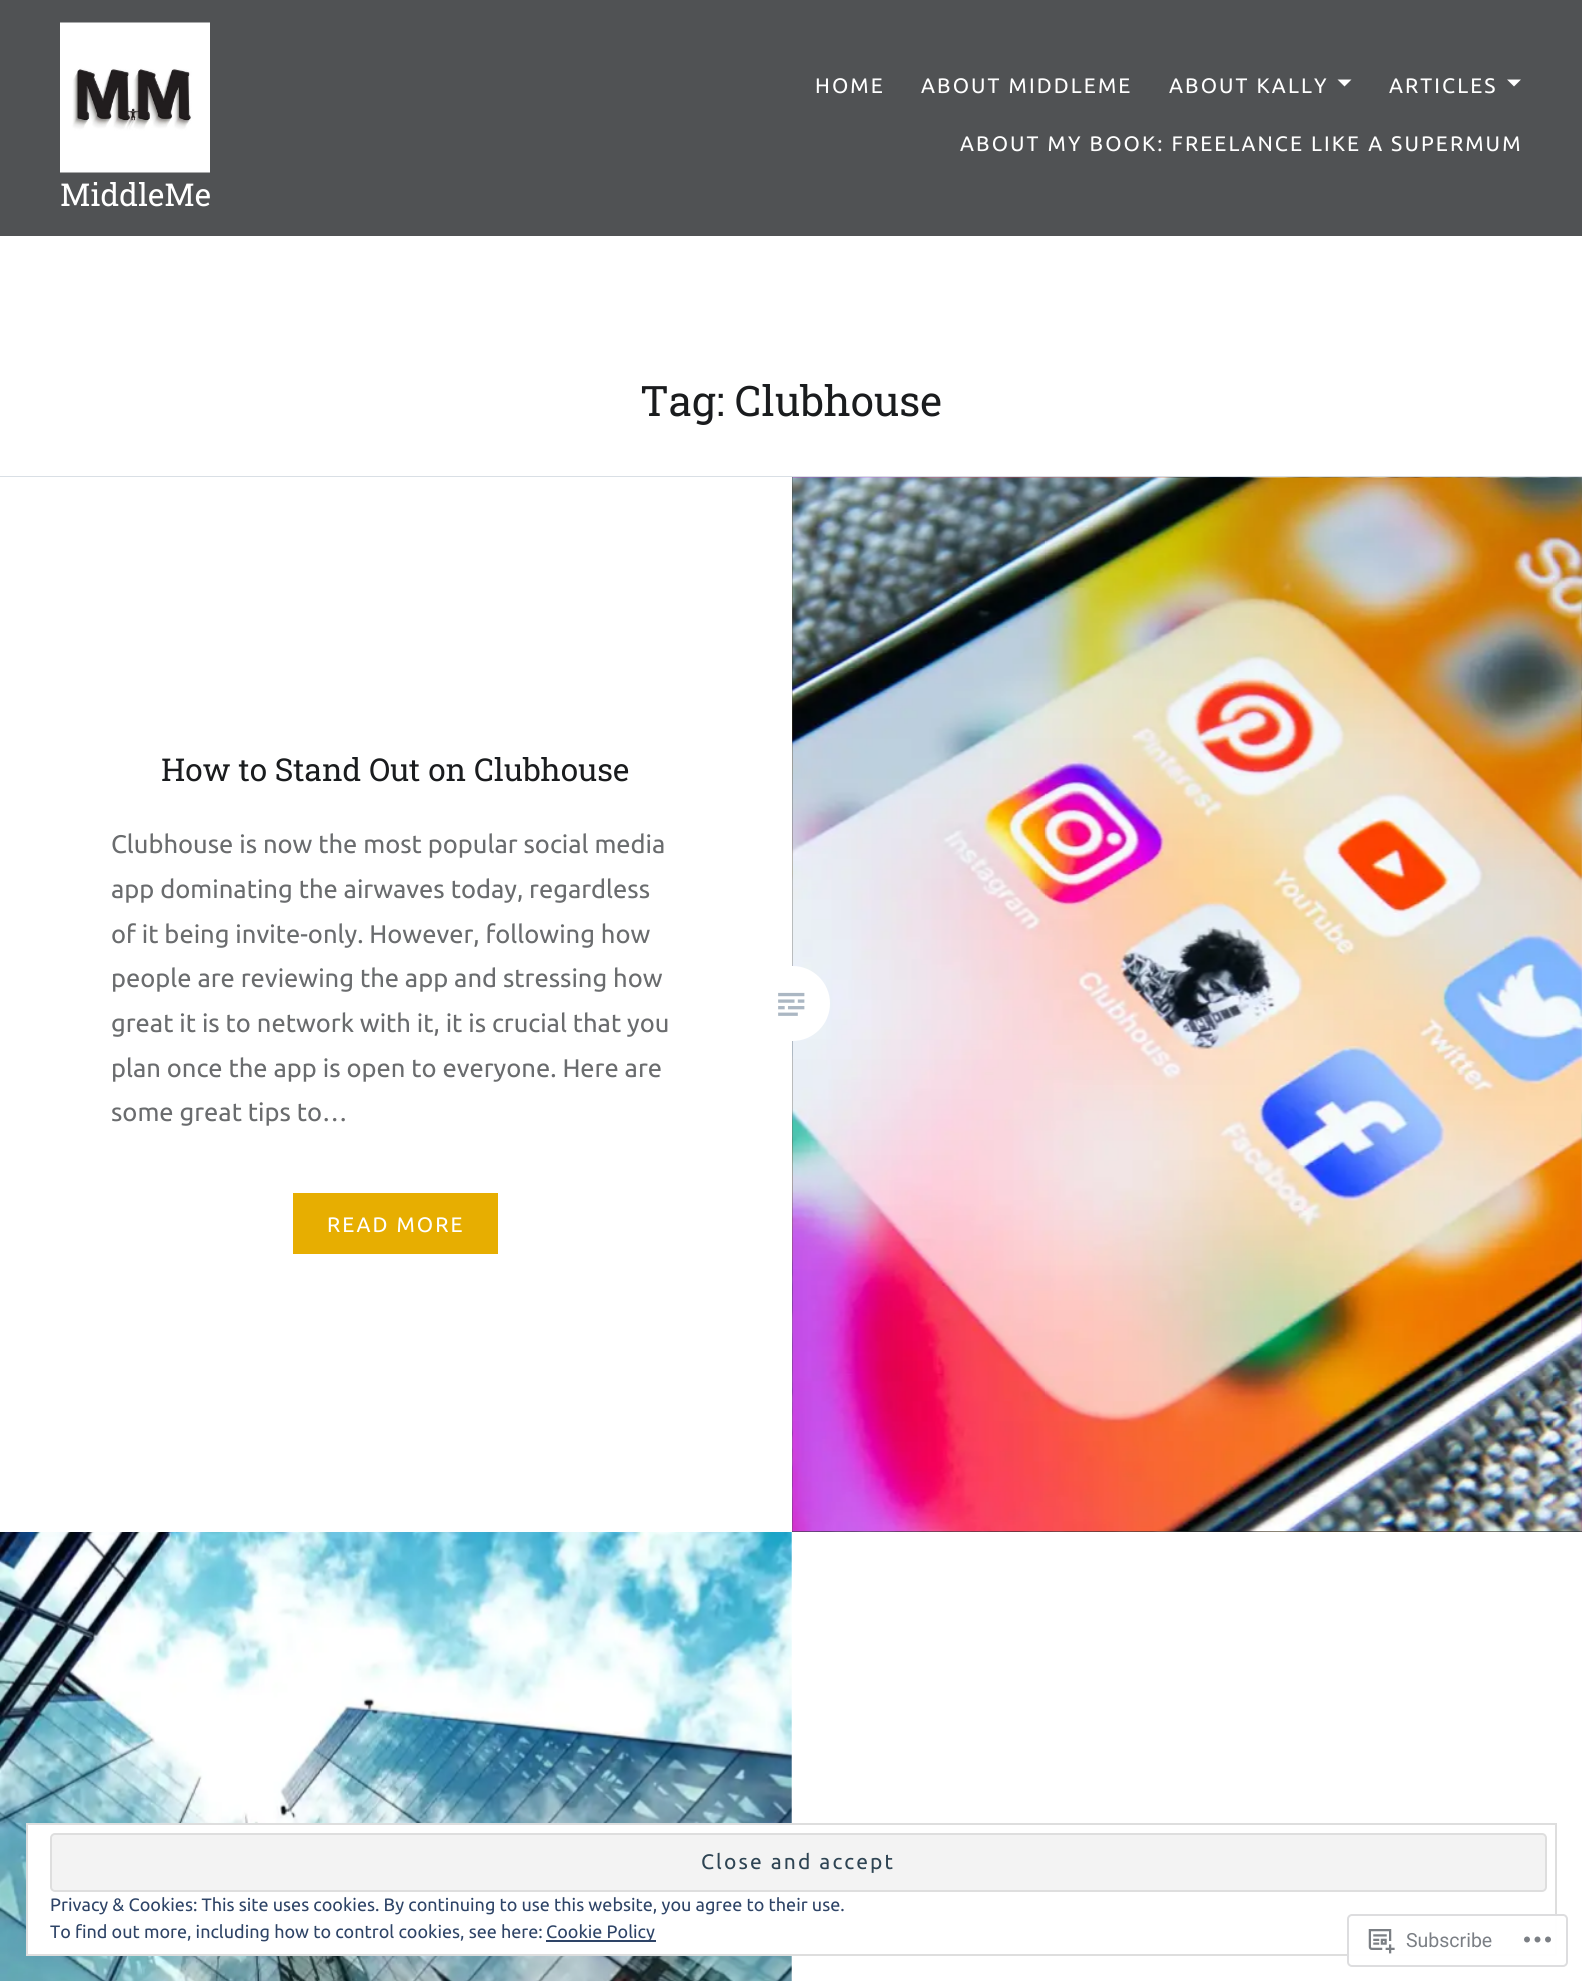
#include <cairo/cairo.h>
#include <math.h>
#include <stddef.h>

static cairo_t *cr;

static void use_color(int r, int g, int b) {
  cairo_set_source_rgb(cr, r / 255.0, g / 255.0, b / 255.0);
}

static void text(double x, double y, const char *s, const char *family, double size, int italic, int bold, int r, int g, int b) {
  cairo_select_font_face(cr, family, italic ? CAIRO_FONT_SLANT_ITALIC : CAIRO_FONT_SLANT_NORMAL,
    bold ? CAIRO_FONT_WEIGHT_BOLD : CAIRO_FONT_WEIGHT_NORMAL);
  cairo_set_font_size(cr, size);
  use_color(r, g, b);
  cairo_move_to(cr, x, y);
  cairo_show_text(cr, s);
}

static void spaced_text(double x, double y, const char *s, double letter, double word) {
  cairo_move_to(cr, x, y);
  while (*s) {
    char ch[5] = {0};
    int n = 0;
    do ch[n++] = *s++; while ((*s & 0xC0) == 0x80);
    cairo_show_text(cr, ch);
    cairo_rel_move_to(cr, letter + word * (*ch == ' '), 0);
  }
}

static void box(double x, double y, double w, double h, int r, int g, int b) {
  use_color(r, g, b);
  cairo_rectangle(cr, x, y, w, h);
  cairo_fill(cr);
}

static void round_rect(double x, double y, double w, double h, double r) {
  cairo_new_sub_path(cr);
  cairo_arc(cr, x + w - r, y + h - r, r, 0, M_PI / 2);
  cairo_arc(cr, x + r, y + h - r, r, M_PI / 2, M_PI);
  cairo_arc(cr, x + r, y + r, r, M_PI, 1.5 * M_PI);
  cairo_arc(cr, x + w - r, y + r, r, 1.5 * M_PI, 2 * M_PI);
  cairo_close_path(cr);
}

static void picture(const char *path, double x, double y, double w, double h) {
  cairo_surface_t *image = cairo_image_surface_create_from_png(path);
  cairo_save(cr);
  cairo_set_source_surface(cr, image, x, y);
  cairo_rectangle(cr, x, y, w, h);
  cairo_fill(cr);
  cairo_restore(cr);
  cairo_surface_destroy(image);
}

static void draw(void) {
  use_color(255, 255, 255);
  cairo_paint(cr);
  box(0, 0, 1582, 236, 80, 82, 84);
  use_color(255, 255, 255);
  cairo_new_path(cr);
  cairo_move_to(cr, 1337.5, 79.5);
  cairo_line_to(cr, 1351.5, 79.5);
  cairo_line_to(cr, 1344.5, 86.5);
  cairo_close_path(cr);
  cairo_fill(cr);
  cairo_new_path(cr);
  cairo_move_to(cr, 1507, 79.5);
  cairo_line_to(cr, 1521, 79.5);
  cairo_line_to(cr, 1514, 86.5);
  cairo_close_path(cr);
  cairo_fill(cr);
  picture("img_01.png", 60, 22, 150, 151);
  box(0, 476, 1582, 1, 217, 223, 229);
  box(293, 1193, 205, 61, 231, 174, 1);
  box(792, 477, 790, 1055, 36, 38, 41);
  picture("img_03.png", 792, 477, 790, 1055);
  use_color(255, 255, 255);
  cairo_arc(cr, 792.5, 1003.5, 37.5, 0, 2 * M_PI);
  cairo_fill(cr);
  picture("img_02.png", 778, 992, 27, 24);
  picture("img_04.png", 0, 1532, 792, 449);
  box(28, 1825, 764, 129, 255, 255, 255);
  cairo_rectangle(cr, 27, 1824, 1529, 131);
  use_color(222, 222, 222);
  cairo_stroke(cr);
  use_color(243, 243, 243);
  round_rect(51, 1834, 1495, 57, 4);
  cairo_fill_preserve(cr);
  use_color(222, 222, 222);
  cairo_stroke(cr);
  box(546, 1940, 110, 2, 46, 68, 103);
  cairo_set_source_rgba(cr, 1, 1, 1, 0.98);
  round_rect(1348, 1915, 219, 51, 4);
  cairo_fill_preserve(cr);
  use_color(221, 221, 223);
  cairo_stroke(cr);
  picture("img_05.png", 1368, 1929, 27, 25);
  picture("img_06.png", 1524, 1936, 27, 7);
  cairo_select_font_face(cr, "Ubuntu", CAIRO_FONT_SLANT_NORMAL, CAIRO_FONT_WEIGHT_NORMAL);
  cairo_set_font_size(cr, 21);
  use_color(255, 255, 255);
  spaced_text(815, 93, "HOME", 2.1, 0);
  spaced_text(921, 93, "ABOUT MIDDLEME", 2.1, 0);
  spaced_text(1169, 93, "ABOUT KALLY", 2.1, 0);
  spaced_text(1389, 93, "ARTICLES", 2.1, 0);
  spaced_text(960, 151, "ABOUT MY BOOK: FREELANCE LIKE A SUPERMUM", 2.1, 0);
  text(60, 206, "MiddleMe", "Roboto Slab", 31.5, 0, 0, 255, 255, 255);
  text(640, 416, "Tag: Clubhouse", "Roboto Slab", 42, 0, 0, 26, 28, 30);
  text(161, 781, "How to Stand Out on Clubhouse", "Roboto Slab", 31.5, 0, 0, 26, 28, 30);
  text(111, 853, "Clubhouse is now the most popular social media", "Ubuntu", 25.5, 0, 0, 106, 108, 110);
  text(111, 898, "app dominating the airwaves today, regardless", "Ubuntu", 25.5, 0, 0, 106, 108, 110);
  text(111, 943, "of it being invite-only. However, following how", "Ubuntu", 25.5, 0, 0, 106, 108, 110);
  text(111, 987, "people are reviewing the app and stressing how", "Ubuntu", 25.5, 0, 0, 106, 108, 110);
  text(111, 1032, "great it is to network with it, it is crucial that you", "Ubuntu", 25.5, 0, 0, 106, 108, 110);
  text(111, 1077, "plan once the app is open to everyone. Here are", "Ubuntu", 25.5, 0, 0, 106, 108, 110);
  text(111, 1121, "some great tips to…", "Ubuntu", 25.5, 0, 0, 106, 108, 110);
  cairo_set_font_size(cr, 21);
  use_color(255, 255, 255);
  spaced_text(327, 1232, "READ MORE", 2.1, 0);
  use_color(46, 68, 83);
  spaced_text(701, 1869, "Close and accept", 2.1, 0);
  text(50, 1911, "Privacy & Cookies: This site uses cookies. By continuing to use this website, you agree to their use.", "Ubuntu", 18, 0, 0, 46, 68, 103);
  text(50, 1938, "To find out more, including how to control cookies, see here:", "Ubuntu", 18, 0, 0, 46, 68, 103);
  text(546, 1938, "Cookie Policy", "Ubuntu", 18, 0, 0, 46, 68, 103);
  text(1406, 1947, "Subscribe", "Roboto", 19.5, 0, 0, 123, 127, 133);
}

int main(void) {
  cairo_surface_t *surface = cairo_image_surface_create(CAIRO_FORMAT_RGB24, 1582, 1981);
  cr = cairo_create(surface);
  cairo_font_options_t *options = cairo_font_options_create();
  cairo_font_options_set_hint_metrics(options, CAIRO_HINT_METRICS_OFF);
  cairo_font_options_set_hint_style(options, CAIRO_HINT_STYLE_NONE);
  cairo_set_font_options(cr, options);
  cairo_set_miter_limit(cr, 4);
  draw();
  cairo_surface_write_to_png(surface, "out.png");
  cairo_font_options_destroy(options);
  cairo_destroy(cr);
  cairo_surface_destroy(surface);
  return 0;
}
